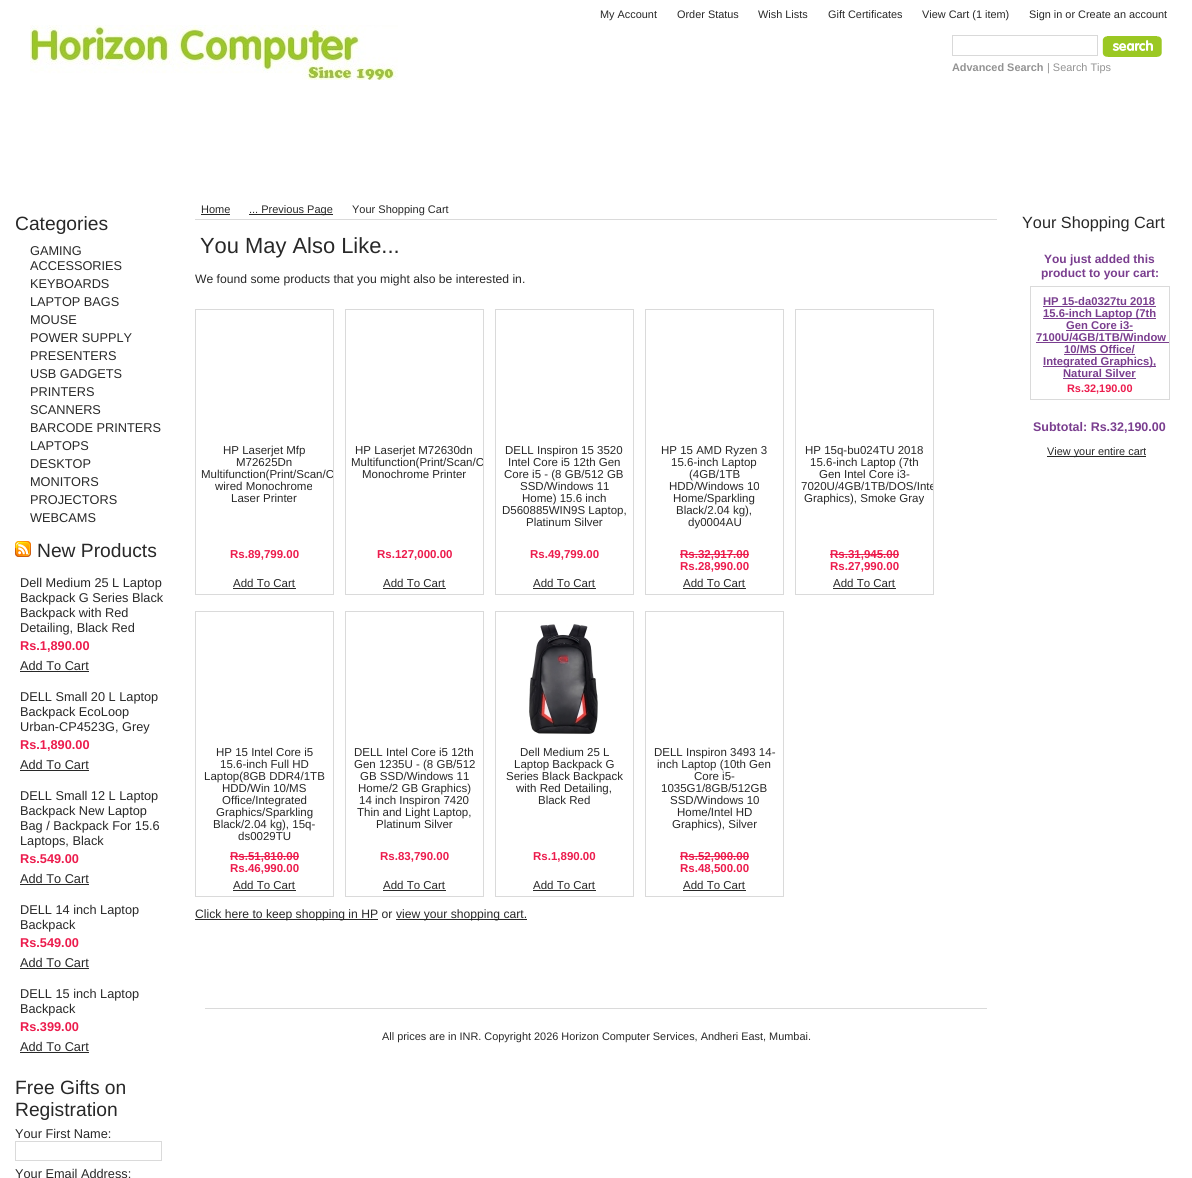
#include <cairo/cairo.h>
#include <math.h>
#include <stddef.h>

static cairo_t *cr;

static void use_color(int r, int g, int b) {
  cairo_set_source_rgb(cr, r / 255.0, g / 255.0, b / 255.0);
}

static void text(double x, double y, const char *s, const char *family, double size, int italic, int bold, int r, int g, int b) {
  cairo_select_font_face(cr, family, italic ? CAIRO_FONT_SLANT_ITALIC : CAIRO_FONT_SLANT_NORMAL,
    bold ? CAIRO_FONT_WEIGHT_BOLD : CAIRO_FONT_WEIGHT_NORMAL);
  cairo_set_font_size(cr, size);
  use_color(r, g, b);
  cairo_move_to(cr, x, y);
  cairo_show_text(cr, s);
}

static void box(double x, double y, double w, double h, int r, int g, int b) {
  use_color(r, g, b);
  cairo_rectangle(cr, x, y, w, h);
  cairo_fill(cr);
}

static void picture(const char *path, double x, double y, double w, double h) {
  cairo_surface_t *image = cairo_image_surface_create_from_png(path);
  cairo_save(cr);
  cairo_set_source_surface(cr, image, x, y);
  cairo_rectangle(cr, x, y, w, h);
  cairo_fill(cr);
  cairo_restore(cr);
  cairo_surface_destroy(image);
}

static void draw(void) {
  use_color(255, 255, 255);
  cairo_paint(cr);
  picture("img_01.png", 30, 25, 368, 55);
  cairo_rectangle(cr, 952.5, 35.5, 145, 20);
  use_color(217, 217, 217);
  cairo_set_line_width(cr, 1);
  cairo_stroke(cr);
  picture("img_02.png", 1102, 36, 60, 21);
  picture("img_03.png", 15, 541, 16, 16);
  box(20, 671, 69, 1, 40, 40, 40);
  box(20, 770, 69, 1, 40, 40, 40);
  box(20, 884, 69, 1, 40, 40, 40);
  box(20, 968, 69, 1, 40, 40, 40);
  box(20, 1052, 69, 1, 40, 40, 40);
  cairo_rectangle(cr, 15.5, 1141.5, 146, 19);
  use_color(218, 218, 218);
  cairo_stroke(cr);
  box(195, 219, 802, 1, 218, 218, 218);
  box(201, 214, 29, 1, 40, 40, 40);
  box(249, 214, 84, 1, 40, 40, 40);
  cairo_rectangle(cr, 195.5, 309.5, 138, 285);
  use_color(218, 218, 218);
  cairo_stroke(cr);
  box(233, 588, 63, 1, 40, 40, 40);
  cairo_rectangle(cr, 345.5, 309.5, 138, 285);
  use_color(218, 218, 218);
  cairo_stroke(cr);
  box(383, 588, 63, 1, 40, 40, 40);
  cairo_rectangle(cr, 495.5, 309.5, 138, 285);
  use_color(218, 218, 218);
  cairo_stroke(cr);
  box(533, 588, 63, 1, 40, 40, 40);
  cairo_rectangle(cr, 645.5, 309.5, 138, 285);
  use_color(218, 218, 218);
  cairo_stroke(cr);
  box(680, 554, 69, 1, 236, 28, 77);
  box(683, 588, 63, 1, 40, 40, 40);
  cairo_rectangle(cr, 795.5, 309.5, 138, 285);
  use_color(218, 218, 218);
  cairo_stroke(cr);
  box(830, 554, 69, 1, 236, 28, 77);
  box(833, 588, 63, 1, 40, 40, 40);
  cairo_rectangle(cr, 195.5, 611.5, 138, 285);
  use_color(218, 218, 218);
  cairo_stroke(cr);
  box(230, 856, 69, 1, 236, 28, 77);
  box(233, 890, 63, 1, 40, 40, 40);
  cairo_rectangle(cr, 345.5, 611.5, 138, 285);
  use_color(218, 218, 218);
  cairo_stroke(cr);
  box(383, 890, 63, 1, 40, 40, 40);
  cairo_rectangle(cr, 495.5, 611.5, 138, 285);
  use_color(218, 218, 218);
  cairo_stroke(cr);
  picture("img_04.png", 529, 624, 69, 110);
  box(533, 890, 63, 1, 40, 40, 40);
  cairo_rectangle(cr, 645.5, 611.5, 138, 285);
  use_color(218, 218, 218);
  cairo_stroke(cr);
  box(680, 856, 69, 1, 236, 28, 77);
  box(683, 890, 63, 1, 40, 40, 40);
  box(195, 919, 183, 1, 40, 40, 40);
  box(396, 919, 131, 1, 40, 40, 40);
  cairo_rectangle(cr, 1030.5, 286.5, 139, 113);
  use_color(218, 218, 218);
  cairo_stroke(cr);
  box(1043, 306, 113, 1, 122, 62, 143);
  box(1043, 318, 113, 1, 122, 62, 143);
  box(1066, 330, 67, 1, 122, 62, 143);
  box(1036, 342, 133, 1, 122, 62, 143);
  box(1064, 354, 71, 1, 122, 62, 143);
  box(1043, 366, 113, 1, 122, 62, 143);
  box(1063, 378, 73, 1, 122, 62, 143);
  box(1047, 456, 99, 1, 40, 40, 40);
  box(205, 1008, 782, 1, 218, 218, 218);
  text(600, 18, "My Account", "Liberation Sans", 10.9, 0, 0, 40, 40, 40);
  text(677, 18, "Order Status", "Liberation Sans", 10.9, 0, 0, 40, 40, 40);
  text(758, 18, "Wish Lists", "Liberation Sans", 10.9, 0, 0, 40, 40, 40);
  text(828, 18, "Gift Certificates", "Liberation Sans", 10.9, 0, 0, 40, 40, 40);
  text(922, 18, "View Cart (1 item)", "Liberation Sans", 10.9, 0, 0, 40, 40, 40);
  text(1029, 18, "Sign in or Create an account", "Liberation Sans", 10.9, 0, 0, 40, 40, 40);
  text(952, 71, "Advanced Search", "Liberation Sans", 10.9, 0, 1, 147, 147, 147);
  text(1047, 71, "| Search Tips", "Liberation Sans", 10.9, 0, 0, 147, 147, 147);
  text(15, 230, "Categories", "Liberation Sans", 19.25, 0, 0, 40, 40, 40);
  text(30, 255, "GAMING", "Liberation Sans", 12.75, 0, 0, 40, 40, 40);
  text(30, 270, "ACCESSORIES", "Liberation Sans", 12.75, 0, 0, 40, 40, 40);
  text(30, 288, "KEYBOARDS", "Liberation Sans", 12.75, 0, 0, 40, 40, 40);
  text(30, 306, "LAPTOP BAGS", "Liberation Sans", 12.75, 0, 0, 40, 40, 40);
  text(30, 324, "MOUSE", "Liberation Sans", 12.75, 0, 0, 40, 40, 40);
  text(30, 342, "POWER SUPPLY", "Liberation Sans", 12.75, 0, 0, 40, 40, 40);
  text(30, 360, "PRESENTERS", "Liberation Sans", 12.75, 0, 0, 40, 40, 40);
  text(30, 378, "USB GADGETS", "Liberation Sans", 12.75, 0, 0, 40, 40, 40);
  text(30, 396, "PRINTERS", "Liberation Sans", 12.75, 0, 0, 40, 40, 40);
  text(30, 414, "SCANNERS", "Liberation Sans", 12.75, 0, 0, 40, 40, 40);
  text(30, 432, "BARCODE PRINTERS", "Liberation Sans", 12.75, 0, 0, 40, 40, 40);
  text(30, 450, "LAPTOPS", "Liberation Sans", 12.75, 0, 0, 40, 40, 40);
  text(30, 468, "DESKTOP", "Liberation Sans", 12.75, 0, 0, 40, 40, 40);
  text(30, 486, "MONITORS", "Liberation Sans", 12.75, 0, 0, 40, 40, 40);
  text(30, 504, "PROJECTORS", "Liberation Sans", 12.75, 0, 0, 40, 40, 40);
  text(30, 522, "WEBCAMS", "Liberation Sans", 12.75, 0, 0, 40, 40, 40);
  text(37, 557, "New Products", "Liberation Sans", 19.25, 0, 0, 40, 40, 40);
  text(20, 587, "Dell Medium 25 L Laptop", "Liberation Sans", 12.75, 0, 0, 40, 40, 40);
  text(20, 602, "Backpack G Series Black", "Liberation Sans", 12.75, 0, 0, 40, 40, 40);
  text(20, 617, "Backpack with Red", "Liberation Sans", 12.75, 0, 0, 40, 40, 40);
  text(20, 632, "Detailing, Black Red", "Liberation Sans", 12.75, 0, 0, 40, 40, 40);
  text(20, 650, "Rs.1,890.00", "Liberation Sans", 12.75, 0, 1, 236, 28, 77);
  text(20, 670, "Add To Cart", "Liberation Sans", 12.75, 0, 0, 40, 40, 40);
  text(20, 701, "DELL Small 20 L Laptop", "Liberation Sans", 12.75, 0, 0, 40, 40, 40);
  text(20, 716, "Backpack EcoLoop", "Liberation Sans", 12.75, 0, 0, 40, 40, 40);
  text(20, 731, "Urban-CP4523G, Grey", "Liberation Sans", 12.75, 0, 0, 40, 40, 40);
  text(20, 749, "Rs.1,890.00", "Liberation Sans", 12.75, 0, 1, 236, 28, 77);
  text(20, 769, "Add To Cart", "Liberation Sans", 12.75, 0, 0, 40, 40, 40);
  text(20, 800, "DELL Small 12 L Laptop", "Liberation Sans", 12.75, 0, 0, 40, 40, 40);
  text(20, 815, "Backpack New Laptop", "Liberation Sans", 12.75, 0, 0, 40, 40, 40);
  text(20, 830, "Bag / Backpack For 15.6", "Liberation Sans", 12.75, 0, 0, 40, 40, 40);
  text(20, 845, "Laptops, Black", "Liberation Sans", 12.75, 0, 0, 40, 40, 40);
  text(20, 863, "Rs.549.00", "Liberation Sans", 12.75, 0, 1, 236, 28, 77);
  text(20, 883, "Add To Cart", "Liberation Sans", 12.75, 0, 0, 40, 40, 40);
  text(20, 914, "DELL 14 inch Laptop", "Liberation Sans", 12.75, 0, 0, 40, 40, 40);
  text(20, 929, "Backpack", "Liberation Sans", 12.75, 0, 0, 40, 40, 40);
  text(20, 947, "Rs.549.00", "Liberation Sans", 12.75, 0, 1, 236, 28, 77);
  text(20, 967, "Add To Cart", "Liberation Sans", 12.75, 0, 0, 40, 40, 40);
  text(20, 998, "DELL 15 inch Laptop", "Liberation Sans", 12.75, 0, 0, 40, 40, 40);
  text(20, 1013, "Backpack", "Liberation Sans", 12.75, 0, 0, 40, 40, 40);
  text(20, 1031, "Rs.399.00", "Liberation Sans", 12.75, 0, 1, 236, 28, 77);
  text(20, 1051, "Add To Cart", "Liberation Sans", 12.75, 0, 0, 40, 40, 40);
  text(15, 1094, "Free Gifts on", "Liberation Sans", 19.25, 0, 0, 40, 40, 40);
  text(15, 1116, "Registration", "Liberation Sans", 19.25, 0, 0, 40, 40, 40);
  text(15, 1138, "Your First Name:", "Liberation Sans", 12.75, 0, 0, 40, 40, 40);
  text(15, 1178, "Your Email Address:", "Liberation Sans", 12.75, 0, 0, 40, 40, 40);
  text(201, 213, "Home", "Liberation Sans", 11, 0, 0, 40, 40, 40);
  text(249, 213, "... Previous Page", "Liberation Sans", 11, 0, 0, 40, 40, 40);
  text(352, 213, "Your Shopping Cart", "Liberation Sans", 11, 0, 0, 40, 40, 40);
  text(200, 253, "You May Also Like...", "Liberation Sans", 21.9, 0, 0, 40, 40, 40);
  text(195, 283, "We found some products that you might also be interested in.", "Liberation Sans", 12.15, 0, 0, 40, 40, 40);
  text(223, 454, "HP Laserjet Mfp", "Liberation Sans", 11.5, 0, 0, 40, 40, 40);
  text(236, 466, "M72625Dn", "Liberation Sans", 11.5, 0, 0, 40, 40, 40);
  cairo_save(cr);
  cairo_rectangle(cr, 196, 310, 137, 284);
  cairo_clip(cr);
  text(201, 478, "Multifunction(Print/Scan/C", "Liberation Sans", 11.5, 0, 0, 40, 40, 40);
  cairo_restore(cr);
  text(215, 490, "wired Monochrome", "Liberation Sans", 11.5, 0, 0, 40, 40, 40);
  text(231, 502, "Laser Printer", "Liberation Sans", 11.5, 0, 0, 40, 40, 40);
  text(230, 558, "Rs.89,799.00", "Liberation Sans", 11.5, 0, 1, 236, 28, 77);
  text(233, 587, "Add To Cart", "Liberation Sans", 11.5, 0, 0, 40, 40, 40);
  text(355, 454, "HP Laserjet M72630dn", "Liberation Sans", 11.5, 0, 0, 40, 40, 40);
  cairo_save(cr);
  cairo_rectangle(cr, 346, 310, 137, 284);
  cairo_clip(cr);
  text(351, 466, "Multifunction(Print/Scan/C", "Liberation Sans", 11.5, 0, 0, 40, 40, 40);
  cairo_restore(cr);
  text(362, 478, "Monochrome Printer", "Liberation Sans", 11.5, 0, 0, 40, 40, 40);
  text(377, 558, "Rs.127,000.00", "Liberation Sans", 11.5, 0, 1, 236, 28, 77);
  text(383, 587, "Add To Cart", "Liberation Sans", 11.5, 0, 0, 40, 40, 40);
  text(505, 454, "DELL Inspiron 15 3520", "Liberation Sans", 11.5, 0, 0, 40, 40, 40);
  text(508, 466, "Intel Core i5 12th Gen", "Liberation Sans", 11.5, 0, 0, 40, 40, 40);
  text(504, 478, "Core i5 - (8 GB/512 GB", "Liberation Sans", 11.5, 0, 0, 40, 40, 40);
  text(520, 490, "SSD/Windows 11", "Liberation Sans", 11.5, 0, 0, 40, 40, 40);
  text(522, 502, "Home) 15.6 inch", "Liberation Sans", 11.5, 0, 0, 40, 40, 40);
  text(502, 514, "D560885WIN9S Laptop,", "Liberation Sans", 11.5, 0, 0, 40, 40, 40);
  text(526, 526, "Platinum Silver", "Liberation Sans", 11.5, 0, 0, 40, 40, 40);
  text(530, 558, "Rs.49,799.00", "Liberation Sans", 11.5, 0, 1, 236, 28, 77);
  text(533, 587, "Add To Cart", "Liberation Sans", 11.5, 0, 0, 40, 40, 40);
  text(661, 454, "HP 15 AMD Ryzen 3", "Liberation Sans", 11.5, 0, 0, 40, 40, 40);
  text(671, 466, "15.6-inch Laptop", "Liberation Sans", 11.5, 0, 0, 40, 40, 40);
  text(689, 478, "(4GB/1TB", "Liberation Sans", 11.5, 0, 0, 40, 40, 40);
  text(669, 490, "HDD/Windows 10", "Liberation Sans", 11.5, 0, 0, 40, 40, 40);
  text(673, 502, "Home/Sparkling", "Liberation Sans", 11.5, 0, 0, 40, 40, 40);
  text(676, 514, "Black/2.04 kg),", "Liberation Sans", 11.5, 0, 0, 40, 40, 40);
  text(688, 526, "dy0004AU", "Liberation Sans", 11.5, 0, 0, 40, 40, 40);
  text(680, 558, "Rs.32,917.00", "Liberation Sans", 11.5, 0, 1, 236, 28, 77);
  text(680, 570, "Rs.28,990.00", "Liberation Sans", 11.5, 0, 1, 236, 28, 77);
  text(683, 587, "Add To Cart", "Liberation Sans", 11.5, 0, 0, 40, 40, 40);
  text(805, 454, "HP 15q-bu024TU 2018", "Liberation Sans", 11.5, 0, 0, 40, 40, 40);
  text(810, 466, "15.6-inch Laptop (7th", "Liberation Sans", 11.5, 0, 0, 40, 40, 40);
  text(819, 478, "Gen Intel Core i3-", "Liberation Sans", 11.5, 0, 0, 40, 40, 40);
  cairo_save(cr);
  cairo_rectangle(cr, 796, 310, 137, 284);
  cairo_clip(cr);
  text(801, 490, "7020U/4GB/1TB/DOS/Inte", "Liberation Sans", 11.5, 0, 0, 40, 40, 40);
  cairo_restore(cr);
  text(804, 502, "Graphics), Smoke Gray", "Liberation Sans", 11.5, 0, 0, 40, 40, 40);
  text(830, 558, "Rs.31,945.00", "Liberation Sans", 11.5, 0, 1, 236, 28, 77);
  text(830, 570, "Rs.27,990.00", "Liberation Sans", 11.5, 0, 1, 236, 28, 77);
  text(833, 587, "Add To Cart", "Liberation Sans", 11.5, 0, 0, 40, 40, 40);
  text(216, 756, "HP 15 Intel Core i5", "Liberation Sans", 11.5, 0, 0, 40, 40, 40);
  text(220, 768, "15.6-inch Full HD", "Liberation Sans", 11.5, 0, 0, 40, 40, 40);
  text(204, 780, "Laptop(8GB DDR4/1TB", "Liberation Sans", 11.5, 0, 0, 40, 40, 40);
  text(222, 792, "HDD/Win 10/MS", "Liberation Sans", 11.5, 0, 0, 40, 40, 40);
  text(222, 804, "Office/Integrated", "Liberation Sans", 11.5, 0, 0, 40, 40, 40);
  text(216, 816, "Graphics/Sparkling", "Liberation Sans", 11.5, 0, 0, 40, 40, 40);
  text(213, 828, "Black/2.04 kg), 15q-", "Liberation Sans", 11.5, 0, 0, 40, 40, 40);
  text(238, 840, "ds0029TU", "Liberation Sans", 11.5, 0, 0, 40, 40, 40);
  text(230, 860, "Rs.51,810.00", "Liberation Sans", 11.5, 0, 1, 236, 28, 77);
  text(230, 872, "Rs.46,990.00", "Liberation Sans", 11.5, 0, 1, 236, 28, 77);
  text(233, 889, "Add To Cart", "Liberation Sans", 11.5, 0, 0, 40, 40, 40);
  text(354, 756, "DELL Intel Core i5 12th", "Liberation Sans", 11.5, 0, 0, 40, 40, 40);
  text(354, 768, "Gen 1235U - (8 GB/512", "Liberation Sans", 11.5, 0, 0, 40, 40, 40);
  text(360, 780, "GB SSD/Windows 11", "Liberation Sans", 11.5, 0, 0, 40, 40, 40);
  text(358, 792, "Home/2 GB Graphics)", "Liberation Sans", 11.5, 0, 0, 40, 40, 40);
  text(359, 804, "14 inch Inspiron 7420", "Liberation Sans", 11.5, 0, 0, 40, 40, 40);
  text(357, 816, "Thin and Light Laptop,", "Liberation Sans", 11.5, 0, 0, 40, 40, 40);
  text(376, 828, "Platinum Silver", "Liberation Sans", 11.5, 0, 0, 40, 40, 40);
  text(380, 860, "Rs.83,790.00", "Liberation Sans", 11.5, 0, 1, 236, 28, 77);
  text(383, 889, "Add To Cart", "Liberation Sans", 11.5, 0, 0, 40, 40, 40);
  text(520, 756, "Dell Medium 25 L", "Liberation Sans", 11.5, 0, 0, 40, 40, 40);
  text(514, 768, "Laptop Backpack G", "Liberation Sans", 11.5, 0, 0, 40, 40, 40);
  text(506, 780, "Series Black Backpack", "Liberation Sans", 11.5, 0, 0, 40, 40, 40);
  text(516, 792, "with Red Detailing,", "Liberation Sans", 11.5, 0, 0, 40, 40, 40);
  text(538, 804, "Black Red", "Liberation Sans", 11.5, 0, 0, 40, 40, 40);
  text(533, 860, "Rs.1,890.00", "Liberation Sans", 11.5, 0, 1, 236, 28, 77);
  text(533, 889, "Add To Cart", "Liberation Sans", 11.5, 0, 0, 40, 40, 40);
  text(654, 756, "DELL Inspiron 3493 14-", "Liberation Sans", 11.5, 0, 0, 40, 40, 40);
  text(657, 768, "inch Laptop (10th Gen", "Liberation Sans", 11.5, 0, 0, 40, 40, 40);
  text(694, 780, "Core i5-", "Liberation Sans", 11.5, 0, 0, 40, 40, 40);
  text(661, 792, "1035G1/8GB/512GB", "Liberation Sans", 11.5, 0, 0, 40, 40, 40);
  text(670, 804, "SSD/Windows 10", "Liberation Sans", 11.5, 0, 0, 40, 40, 40);
  text(677, 816, "Home/Intel HD", "Liberation Sans", 11.5, 0, 0, 40, 40, 40);
  text(672, 828, "Graphics), Silver", "Liberation Sans", 11.5, 0, 0, 40, 40, 40);
  text(680, 860, "Rs.52,900.00", "Liberation Sans", 11.5, 0, 1, 236, 28, 77);
  text(680, 872, "Rs.48,500.00", "Liberation Sans", 11.5, 0, 1, 236, 28, 77);
  text(683, 889, "Add To Cart", "Liberation Sans", 11.5, 0, 0, 40, 40, 40);
  text(195, 918, "Click here to keep shopping in HP or", "Liberation Sans", 12.15, 0, 0, 40, 40, 40);
  text(396, 918, "view your shopping cart.", "Liberation Sans", 12.15, 0, 0, 40, 40, 40);
  text(1022, 228, "Your Shopping Cart", "Liberation Sans", 16.25, 0, 0, 40, 40, 40);
  text(1044, 263, "You just added this", "Liberation Sans", 12, 0, 1, 122, 62, 143);
  text(1041, 277, "product to your cart:", "Liberation Sans", 12, 0, 1, 122, 62, 143);
  text(1043, 305, "HP 15-da0327tu 2018", "Liberation Sans", 11.25, 0, 1, 122, 62, 143);
  text(1043, 317, "15.6-inch Laptop (7th", "Liberation Sans", 11.25, 0, 1, 122, 62, 143);
  text(1066, 329, "Gen Core i3-", "Liberation Sans", 11.25, 0, 1, 122, 62, 143);
  text(1036, 341, "7100U/4GB/1TB/Window", "Liberation Sans", 11.25, 0, 1, 122, 62, 143);
  text(1064, 353, "10/MS Office/", "Liberation Sans", 11.25, 0, 1, 122, 62, 143);
  text(1043, 365, "Integrated Graphics),", "Liberation Sans", 11.25, 0, 1, 122, 62, 143);
  text(1063, 377, "Natural Silver", "Liberation Sans", 11.25, 0, 1, 122, 62, 143);
  text(1067, 392, "Rs.32,190.00", "Liberation Sans", 10.9, 0, 1, 236, 28, 77);
  text(1033, 431, "Subtotal: Rs.32,190.00", "Liberation Sans", 12.5, 0, 1, 122, 62, 143);
  text(1047, 455, "View your entire cart", "Liberation Sans", 10.9, 0, 0, 40, 40, 40);
  text(382, 1040, "All prices are in INR. Copyright 2026 Horizon Computer Services, Andheri East, Mumbai.", "Liberation Sans", 10.9, 0, 0, 40, 40, 40);
}

int main(void) {
  cairo_surface_t *surface = cairo_image_surface_create(CAIRO_FORMAT_RGB24, 1192, 1178);
  cr = cairo_create(surface);
  cairo_font_options_t *options = cairo_font_options_create();
  cairo_font_options_set_hint_metrics(options, CAIRO_HINT_METRICS_OFF);
  cairo_font_options_set_hint_style(options, CAIRO_HINT_STYLE_NONE);
  cairo_set_font_options(cr, options);
  cairo_set_miter_limit(cr, 4);
  draw();
  cairo_surface_write_to_png(surface, "out.png");
  cairo_font_options_destroy(options);
  cairo_destroy(cr);
  cairo_surface_destroy(surface);
  return 0;
}
